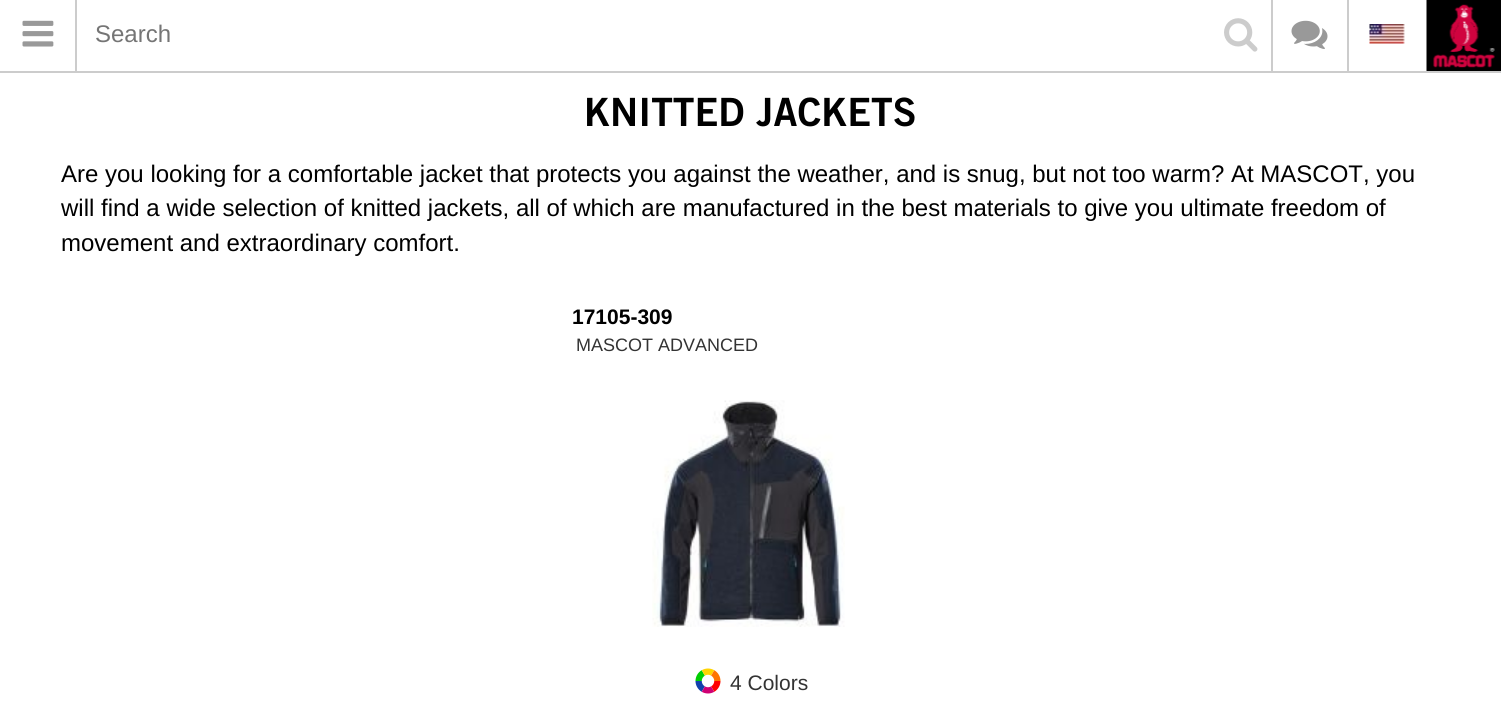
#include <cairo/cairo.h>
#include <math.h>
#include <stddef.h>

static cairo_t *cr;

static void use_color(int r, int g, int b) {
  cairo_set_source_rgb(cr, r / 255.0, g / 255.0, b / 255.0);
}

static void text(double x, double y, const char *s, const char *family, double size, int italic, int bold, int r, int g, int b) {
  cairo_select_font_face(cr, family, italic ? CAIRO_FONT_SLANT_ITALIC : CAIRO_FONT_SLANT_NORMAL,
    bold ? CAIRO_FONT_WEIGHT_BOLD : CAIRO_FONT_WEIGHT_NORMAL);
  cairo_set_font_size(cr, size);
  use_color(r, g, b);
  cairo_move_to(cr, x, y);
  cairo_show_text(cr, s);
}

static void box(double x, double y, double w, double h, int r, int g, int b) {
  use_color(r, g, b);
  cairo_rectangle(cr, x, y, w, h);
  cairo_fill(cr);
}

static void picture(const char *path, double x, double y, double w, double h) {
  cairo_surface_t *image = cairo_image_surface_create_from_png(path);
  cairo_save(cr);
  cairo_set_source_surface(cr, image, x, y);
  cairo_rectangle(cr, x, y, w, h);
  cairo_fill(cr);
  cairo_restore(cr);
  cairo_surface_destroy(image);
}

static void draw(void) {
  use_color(255, 255, 255);
  cairo_paint(cr);
  box(0, 71, 1501, 2, 204, 204, 204);
  box(75, 0, 2, 71, 204, 204, 204);
  picture("img_01.png", 22, 20, 32, 27);
  box(1271, 0, 2, 71, 204, 204, 204);
  box(1347, 0, 2, 71, 204, 204, 204);
  picture("img_02.png", 1291, 20, 37, 29);
  picture("img_03.png", 1369, 24, 36, 20);
  picture("img_04.png", 1426, 0, 75, 71);
  picture("img_05.png", 1224, 18, 34, 34);
  picture("img_06.png", 652, 400, 193, 227);
  picture("img_07.png", 695, 668, 26, 26);
  text(95, 42, "Search", "Liberation Sans", 24, 0, 0, 117, 117, 117);
  text(584, 126, "KNITTED JACKETS", "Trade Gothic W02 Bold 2", 39, 0, 1, 0, 0, 0);
  text(61, 182, "Are you looking for a comfortable jacket that protects you against the weather, and is snug, but not too warm? At MASCOT, you", "Liberation Sans", 24, 0, 0, 0, 0, 0);
  text(61, 216, "will find a wide selection of knitted jackets, all of which are manufactured in the best materials to give you ultimate freedom of", "Liberation Sans", 24, 0, 0, 0, 0, 0);
  text(61, 251, "movement and extraordinary comfort.", "Liberation Sans", 24, 0, 0, 0, 0, 0);
  text(572, 324, "17105-309", "Liberation Sans", 21, 0, 1, 0, 0, 0);
  text(576, 351, "MASCOT ADVANCED", "Liberation Sans", 18, 0, 0, 51, 51, 51);
  text(730, 690, "4 Colors", "Liberation Sans", 21, 0, 0, 51, 51, 51);
}

int main(void) {
  cairo_surface_t *surface = cairo_image_surface_create(CAIRO_FORMAT_RGB24, 1501, 708);
  cr = cairo_create(surface);
  cairo_font_options_t *options = cairo_font_options_create();
  cairo_font_options_set_hint_metrics(options, CAIRO_HINT_METRICS_OFF);
  cairo_font_options_set_hint_style(options, CAIRO_HINT_STYLE_NONE);
  cairo_set_font_options(cr, options);
  cairo_set_miter_limit(cr, 4);
  draw();
  cairo_surface_write_to_png(surface, "out.png");
  cairo_font_options_destroy(options);
  cairo_destroy(cr);
  cairo_surface_destroy(surface);
  return 0;
}
